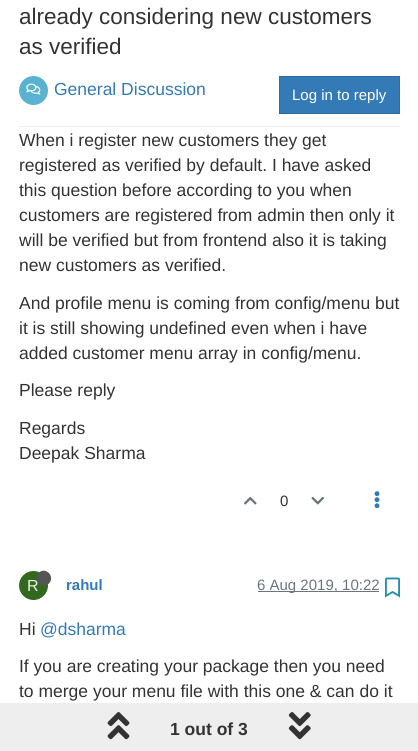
#include <cairo/cairo.h>
#include <math.h>
#include <stddef.h>

static cairo_t *cr;

static void use_color(int r, int g, int b) {
  cairo_set_source_rgb(cr, r / 255.0, g / 255.0, b / 255.0);
}

static void text(double x, double y, const char *s, const char *family, double size, int italic, int bold, int r, int g, int b) {
  cairo_select_font_face(cr, family, italic ? CAIRO_FONT_SLANT_ITALIC : CAIRO_FONT_SLANT_NORMAL,
    bold ? CAIRO_FONT_WEIGHT_BOLD : CAIRO_FONT_WEIGHT_NORMAL);
  cairo_set_font_size(cr, size);
  use_color(r, g, b);
  cairo_move_to(cr, x, y);
  cairo_show_text(cr, s);
}

static void box(double x, double y, double w, double h, int r, int g, int b) {
  use_color(r, g, b);
  cairo_rectangle(cr, x, y, w, h);
  cairo_fill(cr);
}

static void picture(const char *path, double x, double y, double w, double h) {
  cairo_surface_t *image = cairo_image_surface_create_from_png(path);
  cairo_save(cr);
  cairo_set_source_surface(cr, image, x, y);
  cairo_rectangle(cr, x, y, w, h);
  cairo_fill(cr);
  cairo_restore(cr);
  cairo_surface_destroy(image);
}

static void draw(void) {
  use_color(255, 255, 255);
  cairo_paint(cr);
  box(19, 126, 381, 1, 238, 238, 238);
  use_color(89, 179, 208);
  cairo_arc(cr, 33.5, 90.5, 14.5, 0, 2 * M_PI);
  cairo_fill(cr);
  picture("img_01.png", 26, 83, 15, 12);
  use_color(51, 122, 183);
  cairo_rectangle(cr, 279.5, 76.5, 120, 37);
  cairo_fill_preserve(cr);
  use_color(46, 109, 164);
  cairo_set_line_width(cr, 1);
  cairo_stroke(cr);
  picture("img_02.png", 244, 496, 13, 9);
  picture("img_03.png", 311, 496, 13, 9);
  picture("img_04.png", 374, 491, 6, 18);
  use_color(51, 105, 30);
  cairo_arc(cr, 33.5, 585.5, 14.5, 0, 2 * M_PI);
  cairo_fill(cr);
  box(258, 591, 121, 1, 108, 117, 125);
  picture("img_05.png", 385, 577, 15, 21);
  box(0, 703, 418, 48, 238, 238, 238);
  picture("img_06.png", 107, 712, 23, 28);
  picture("img_07.png", 288, 712, 23, 28);
  text(19, 24, "already considering new customers", "Liberation Sans", 22.5, 0, 0, 51, 51, 51);
  text(19, 54, "as verified", "Liberation Sans", 22.5, 0, 0, 51, 51, 51);
  text(54, 95, "General Discussion", "Liberation Sans", 17.5, 0, 0, 51, 122, 183);
  text(292, 100, "Log in to reply", "Liberation Sans", 15, 0, 0, 255, 255, 255);
  text(19, 146, "When i register new customers they get", "Liberation Sans", 17.5, 0, 0, 51, 51, 51);
  text(19, 171, "registered as verified by default. I have asked", "Liberation Sans", 17.5, 0, 0, 51, 51, 51);
  text(19, 196, "this question before according to you when", "Liberation Sans", 17.5, 0, 0, 51, 51, 51);
  text(19, 221, "customers are registered from admin then only it", "Liberation Sans", 17.5, 0, 0, 51, 51, 51);
  text(19, 246, "will be verified but from frontend also it is taking", "Liberation Sans", 17.5, 0, 0, 51, 51, 51);
  text(19, 271, "new customers as verified.", "Liberation Sans", 17.5, 0, 0, 51, 51, 51);
  text(19, 309, "And profile menu is coming from config/menu but", "Liberation Sans", 17.5, 0, 0, 51, 51, 51);
  text(19, 334, "it is still showing undefined even when i have", "Liberation Sans", 17.5, 0, 0, 51, 51, 51);
  text(19, 359, "added customer menu array in config/menu.", "Liberation Sans", 17.5, 0, 0, 51, 51, 51);
  text(19, 396, "Please reply", "Liberation Sans", 17.5, 0, 0, 51, 51, 51);
  text(19, 434, "Regards", "Liberation Sans", 17.5, 0, 0, 51, 51, 51);
  text(19, 459, "Deepak Sharma", "Liberation Sans", 17.5, 0, 0, 51, 51, 51);
  text(280, 506, "0", "Liberation Sans", 15, 0, 0, 51, 51, 51);
  text(27, 591, "R", "Liberation Sans", 16, 0, 0, 238, 238, 238);
  use_color(85, 85, 85);
  cairo_new_path(cr);
  cairo_move_to(cr, 38.5, 573);
  cairo_curve_to(cr, 45.5, 566, 55.5, 576.5, 49, 583.5);
  cairo_curve_to(cr, 42, 590, 32, 579.5, 38.5, 573);
  cairo_close_path(cr);
  cairo_fill(cr);
  text(66, 590, "rahul", "Liberation Sans", 15, 0, 1, 51, 122, 183);
  text(257, 590, "6 Aug 2019, 10:22", "Liberation Sans", 15, 0, 0, 108, 117, 125);
  text(19, 635, "Hi", "Liberation Sans", 17.5, 0, 0, 51, 51, 51);
  text(40, 635, "@dsharma", "Liberation Sans", 17.5, 0, 0, 51, 122, 183);
  text(19, 672, "If you are creating your package then you need", "Liberation Sans", 17.5, 0, 0, 51, 51, 51);
  text(19, 697, "to merge your menu file with this one & can do it", "Liberation Sans", 17.5, 0, 0, 51, 51, 51);
  text(170, 735, "1 out of 3", "Liberation Sans", 17.5, 0, 1, 51, 51, 51);
}

int main(void) {
  cairo_surface_t *surface = cairo_image_surface_create(CAIRO_FORMAT_RGB24, 418, 751);
  cr = cairo_create(surface);
  cairo_font_options_t *options = cairo_font_options_create();
  cairo_font_options_set_hint_metrics(options, CAIRO_HINT_METRICS_OFF);
  cairo_font_options_set_hint_style(options, CAIRO_HINT_STYLE_NONE);
  cairo_set_font_options(cr, options);
  cairo_set_miter_limit(cr, 4);
  draw();
  cairo_surface_write_to_png(surface, "out.png");
  cairo_font_options_destroy(options);
  cairo_destroy(cr);
  cairo_surface_destroy(surface);
  return 0;
}
